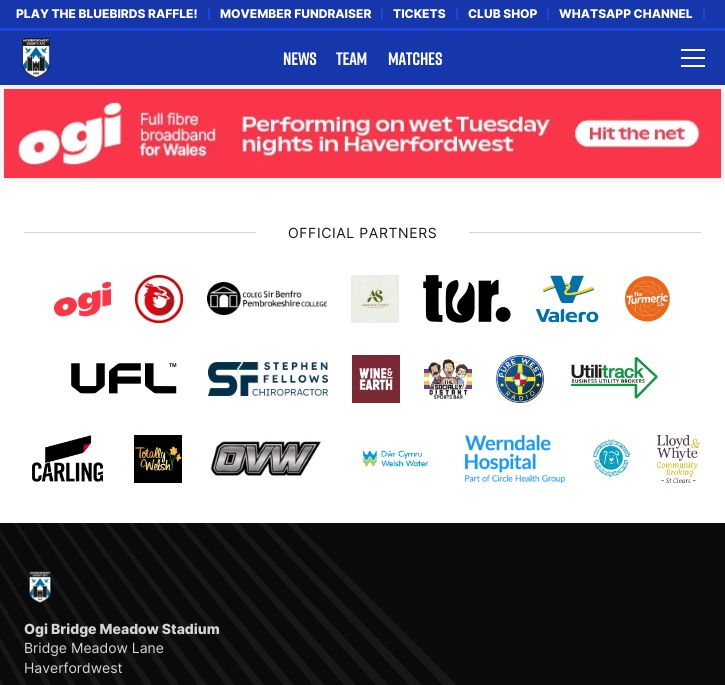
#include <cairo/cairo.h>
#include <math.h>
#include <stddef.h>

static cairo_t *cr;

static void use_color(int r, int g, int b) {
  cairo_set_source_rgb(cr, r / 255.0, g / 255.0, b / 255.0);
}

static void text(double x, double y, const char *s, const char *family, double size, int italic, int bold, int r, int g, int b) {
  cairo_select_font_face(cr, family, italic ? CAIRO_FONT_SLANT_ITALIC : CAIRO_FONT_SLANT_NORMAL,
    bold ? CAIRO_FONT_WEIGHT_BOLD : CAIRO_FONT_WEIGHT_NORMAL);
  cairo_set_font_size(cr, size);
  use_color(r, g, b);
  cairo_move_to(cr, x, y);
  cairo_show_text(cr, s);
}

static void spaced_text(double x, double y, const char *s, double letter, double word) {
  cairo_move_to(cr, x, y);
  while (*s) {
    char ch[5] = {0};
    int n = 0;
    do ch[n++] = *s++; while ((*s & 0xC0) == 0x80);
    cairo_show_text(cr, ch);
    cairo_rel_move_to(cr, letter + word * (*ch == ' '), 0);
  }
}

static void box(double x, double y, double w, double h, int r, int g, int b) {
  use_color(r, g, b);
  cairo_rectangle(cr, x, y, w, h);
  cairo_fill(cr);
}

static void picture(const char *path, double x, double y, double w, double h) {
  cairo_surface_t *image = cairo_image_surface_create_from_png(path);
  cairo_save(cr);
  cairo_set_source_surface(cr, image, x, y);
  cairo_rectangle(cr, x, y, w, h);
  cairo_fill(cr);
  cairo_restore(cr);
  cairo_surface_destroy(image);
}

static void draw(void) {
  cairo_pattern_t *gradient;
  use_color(255, 255, 255);
  cairo_paint(cr);
  box(0, 0, 725, 28, 22, 54, 171);
  box(0, 28, 725, 3, 28, 70, 221);
  box(208, 8, 2, 12, 28, 70, 221);
  box(381, 8, 2, 12, 28, 70, 221);
  box(456, 8, 2, 12, 28, 70, 221);
  box(547, 8, 2, 12, 28, 70, 221);
  box(703, 8, 2, 12, 28, 70, 221);
  gradient = cairo_pattern_create_linear(725, 14, 701, 14);
  cairo_pattern_add_color_stop_rgba(gradient, 0, 0.086, 0.212, 0.671, 1);
  cairo_pattern_add_color_stop_rgba(gradient, 1, 0.086, 0.212, 0.671, 0);
  cairo_set_source(cr, gradient);
  cairo_pattern_destroy(gradient);
  cairo_rectangle(cr, 703, 8, 2, 12);
  cairo_fill(cr);
  box(0, 31, 725, 54, 22, 54, 171);
  picture("img_01.png", 21, 38, 29, 40);
  box(681, 49, 24, 2, 255, 255, 255);
  box(681, 57, 24, 2, 255, 255, 255);
  box(681, 65, 24, 2, 255, 255, 255);
  box(0, 85, 725, 97, 245, 245, 245);
  picture("img_02.png", 4, 89, 717, 89);
  box(24, 232, 232, 1, 212, 212, 212);
  box(469, 232, 232, 1, 212, 212, 212);
  picture("img_03.png", 54, 281, 57, 36);
  picture("img_04.png", 135, 275, 48, 48);
  picture("img_05.png", 207, 282, 120, 33);
  picture("img_06.png", 351, 275, 48, 48);
  picture("img_07.png", 423, 275, 88, 48);
  picture("img_08.png", 535, 275, 64, 48);
  picture("img_09.png", 625, 275, 45, 47);
  picture("img_10.png", 71, 363, 106, 31);
  picture("img_11.png", 208, 362, 120, 34);
  picture("img_12.png", 352, 355, 48, 48);
  picture("img_13.png", 424, 359, 48, 40);
  picture("img_14.png", 496, 355, 48, 48);
  picture("img_15.png", 570, 356, 88, 43);
  picture("img_16.png", 32, 435, 71, 47);
  picture("img_17.png", 134, 435, 48, 48);
  picture("img_18.png", 210, 441, 111, 35);
  picture("img_19.png", 363, 450, 66, 17);
  picture("img_20.png", 465, 435, 100, 48);
  picture("img_21.png", 593, 439, 37, 38);
  picture("img_22.png", 657, 435, 43, 48);
  box(0, 523, 725, 162, 10, 10, 10);
  picture("img_23.png", 0, 523, 456, 162);
  picture("img_24.png", 29, 571, 22, 32);
  text(16, 18, "PLAY THE BLUEBIRDS RAFFLE!", "Inter ExtraBold", 12, 0, 0, 255, 255, 255);
  text(220, 18, "MOVEMBER FUNDRAISER", "Inter ExtraBold", 12, 0, 0, 255, 255, 255);
  text(393, 18, "TICKETS", "Inter ExtraBold", 12, 0, 0, 255, 255, 255);
  text(468, 18, "CLUB SHOP", "Inter ExtraBold", 12, 0, 0, 255, 255, 255);
  text(559, 18, "WHATSAPP CHANNEL", "Inter ExtraBold", 12, 0, 0, 255, 255, 255);
  cairo_select_font_face(cr, "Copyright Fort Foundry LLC", CAIRO_FONT_SLANT_NORMAL, CAIRO_FONT_WEIGHT_BOLD);
  cairo_set_font_size(cr, 18);
  spaced_text(283, 65, "NEWS", -0.25, 0);
  spaced_text(336, 65, "TEAM", -0.25, 0);
  spaced_text(388, 65, "MATCHES", -0.25, 0);
  cairo_select_font_face(cr, "Inter", CAIRO_FONT_SLANT_NORMAL, CAIRO_FONT_WEIGHT_NORMAL);
  cairo_set_font_size(cr, 14);
  use_color(23, 23, 23);
  spaced_text(288, 238, "OFFICIAL PARTNERS", 0.6, 0);
  text(24, 634, "Ogi Bridge Meadow Stadium", "Inter ExtraBold", 14, 0, 0, 212, 212, 212);
  text(24, 653, "Bridge Meadow Lane", "Inter", 14, 0, 0, 212, 212, 212);
  text(24, 673, "Haverfordwest", "Inter", 14, 0, 0, 212, 212, 212);
}

int main(void) {
  cairo_surface_t *surface = cairo_image_surface_create(CAIRO_FORMAT_RGB24, 725, 685);
  cr = cairo_create(surface);
  cairo_font_options_t *options = cairo_font_options_create();
  cairo_font_options_set_hint_metrics(options, CAIRO_HINT_METRICS_OFF);
  cairo_font_options_set_hint_style(options, CAIRO_HINT_STYLE_NONE);
  cairo_set_font_options(cr, options);
  cairo_set_miter_limit(cr, 4);
  draw();
  cairo_surface_write_to_png(surface, "out.png");
  cairo_font_options_destroy(options);
  cairo_destroy(cr);
  cairo_surface_destroy(surface);
  return 0;
}
